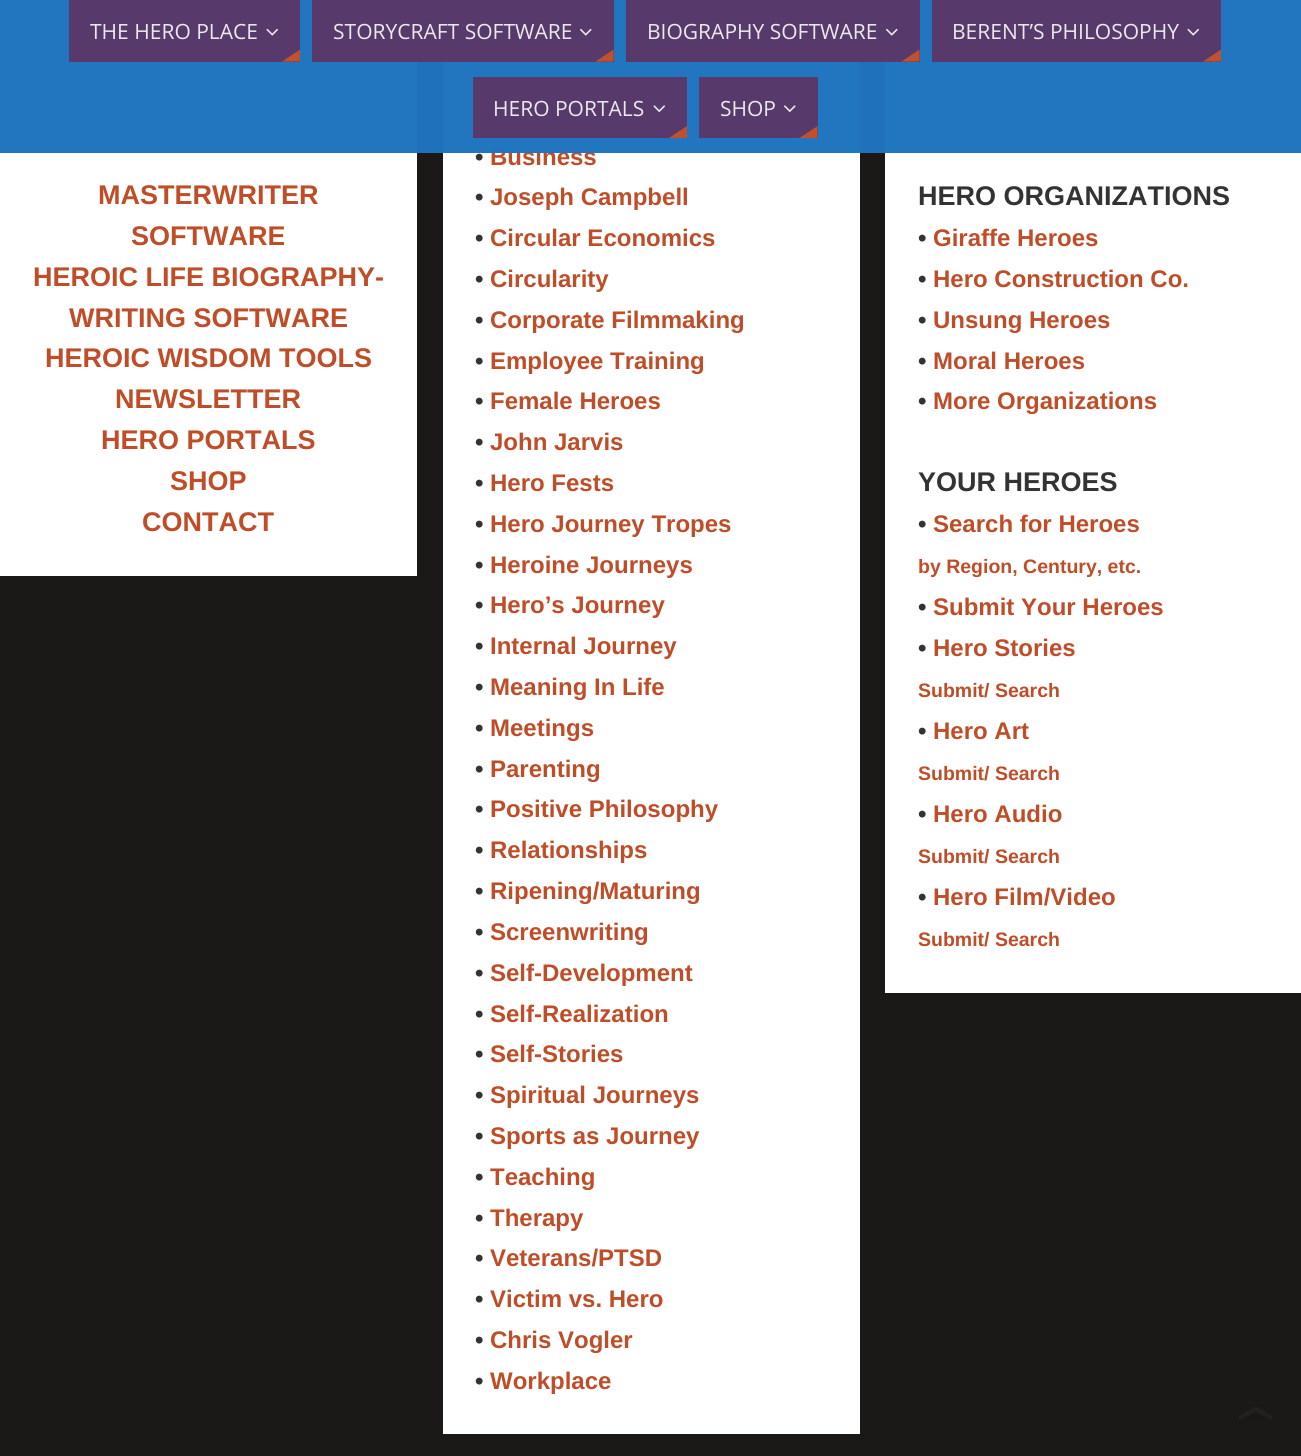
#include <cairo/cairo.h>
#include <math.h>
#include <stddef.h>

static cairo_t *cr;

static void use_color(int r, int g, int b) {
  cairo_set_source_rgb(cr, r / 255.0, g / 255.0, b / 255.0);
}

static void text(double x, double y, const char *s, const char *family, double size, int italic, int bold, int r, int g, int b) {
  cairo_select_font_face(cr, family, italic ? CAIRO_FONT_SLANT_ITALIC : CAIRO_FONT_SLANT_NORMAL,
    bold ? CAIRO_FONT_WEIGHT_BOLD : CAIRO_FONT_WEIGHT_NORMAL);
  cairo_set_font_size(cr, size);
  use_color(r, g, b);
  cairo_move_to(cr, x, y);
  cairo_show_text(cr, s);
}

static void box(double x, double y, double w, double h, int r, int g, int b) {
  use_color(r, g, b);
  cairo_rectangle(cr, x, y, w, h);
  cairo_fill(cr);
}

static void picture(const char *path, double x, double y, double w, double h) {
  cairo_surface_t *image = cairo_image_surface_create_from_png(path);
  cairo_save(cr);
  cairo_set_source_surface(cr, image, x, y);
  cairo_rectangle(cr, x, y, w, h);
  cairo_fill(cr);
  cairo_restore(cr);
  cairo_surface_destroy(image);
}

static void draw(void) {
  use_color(26, 25, 23);
  cairo_paint(cr);
  box(0, 0, 417, 576, 255, 255, 255);
  box(443, 0, 417, 1434, 255, 255, 255);
  box(885, 0, 416, 993, 255, 255, 255);
  picture("img_07.png", 1239, 1407, 33, 13);
  text(98, 204, "MASTERWRITER", "Liberation Sans", 27, 0, 1, 191, 77, 40);
  text(131, 245, "SOFTWARE", "Liberation Sans", 27, 0, 1, 191, 77, 40);
  text(33, 286, "HEROIC LIFE BIOGRAPHY-", "Liberation Sans", 27, 0, 1, 191, 77, 40);
  text(69, 327, "WRITING SOFTWARE", "Liberation Sans", 27, 0, 1, 191, 77, 40);
  text(45, 367, "HEROIC WISDOM TOOLS", "Liberation Sans", 27, 0, 1, 191, 77, 40);
  text(115, 408, "NEWSLETTER", "Liberation Sans", 27, 0, 1, 191, 77, 40);
  text(101, 449, "HERO PORTALS", "Liberation Sans", 27, 0, 1, 191, 77, 40);
  text(170, 490, "SHOP", "Liberation Sans", 27, 0, 1, 191, 77, 40);
  text(142, 531, "CONTACT", "Liberation Sans", 27, 0, 1, 191, 77, 40);
  text(475, 165, "•", "Liberation Sans", 24, 0, 1, 51, 51, 51);
  text(490, 165, "Business", "Liberation Sans", 24, 0, 1, 191, 77, 40);
  cairo_set_source_rgba(cr, 0.118, 0.451, 0.745, 0.98);
  cairo_rectangle(cr, 0, 0, 1301, 153);
  cairo_fill(cr);
  cairo_set_source_rgba(cr, 0.349, 0.22, 0.412, 0.98);
  cairo_rectangle(cr, 699, 77, 119, 61);
  cairo_fill(cr);
  picture("img_06.png", 784, 105, 12, 8);
  cairo_rectangle(cr, 473, 77, 214, 61);
  cairo_fill(cr);
  picture("img_05.png", 653, 105, 13, 8);
  cairo_rectangle(cr, 932, 0, 289, 62);
  cairo_fill(cr);
  picture("img_04.png", 1187, 28, 13, 8);
  cairo_rectangle(cr, 626, 0, 294, 62);
  cairo_fill(cr);
  picture("img_03.png", 886, 28, 12, 8);
  cairo_rectangle(cr, 312, 0, 302, 62);
  cairo_fill(cr);
  picture("img_02.png", 580, 28, 12, 8);
  cairo_rectangle(cr, 69, 0, 231, 62);
  cairo_fill(cr);
  picture("img_01.png", 266, 28, 13, 8);
  use_color(192, 81, 44);
  cairo_new_path(cr);
  cairo_move_to(cr, 817.5, 138);
  cairo_line_to(cr, 799.5, 138);
  cairo_line_to(cr, 817.5, 126);
  cairo_close_path(cr);
  cairo_fill(cr);
  text(720, 116, "SHOP", "Open Sans", 21, 0, 0, 235, 234, 235);
  use_color(192, 81, 44);
  cairo_new_path(cr);
  cairo_move_to(cr, 687, 138);
  cairo_line_to(cr, 669, 138);
  cairo_line_to(cr, 687, 126);
  cairo_close_path(cr);
  cairo_fill(cr);
  text(493, 116, "HERO PORTALS", "Open Sans", 21, 0, 0, 235, 234, 235);
  use_color(192, 81, 44);
  cairo_new_path(cr);
  cairo_move_to(cr, 1221, 61.5);
  cairo_line_to(cr, 1203, 61.5);
  cairo_line_to(cr, 1221, 49.5);
  cairo_close_path(cr);
  cairo_fill(cr);
  text(952, 39, "BERENT’S PHILOSOPHY", "Open Sans", 21, 0, 0, 235, 234, 235);
  use_color(192, 81, 44);
  cairo_new_path(cr);
  cairo_move_to(cr, 919.5, 61.5);
  cairo_line_to(cr, 901.5, 61.5);
  cairo_line_to(cr, 919.5, 49.5);
  cairo_close_path(cr);
  cairo_fill(cr);
  text(647, 39, "BIOGRAPHY SOFTWARE", "Open Sans", 21, 0, 0, 235, 234, 235);
  use_color(192, 81, 44);
  cairo_new_path(cr);
  cairo_move_to(cr, 613.5, 61.5);
  cairo_line_to(cr, 595.5, 61.5);
  cairo_line_to(cr, 613.5, 49.5);
  cairo_close_path(cr);
  cairo_fill(cr);
  text(333, 39, "STORYCRAFT SOFTWARE", "Open Sans", 21, 0, 0, 235, 234, 235);
  use_color(192, 81, 44);
  cairo_new_path(cr);
  cairo_move_to(cr, 300, 61.5);
  cairo_line_to(cr, 282, 61.5);
  cairo_line_to(cr, 300, 49.5);
  cairo_close_path(cr);
  cairo_fill(cr);
  text(90, 39, "THE HERO PLACE", "Open Sans", 21, 0, 0, 235, 234, 235);
  text(475, 205, "•", "Liberation Sans", 24, 0, 1, 51, 51, 51);
  text(490, 205, "Joseph Campbell", "Liberation Sans", 24, 0, 1, 191, 77, 40);
  text(475, 246, "•", "Liberation Sans", 24, 0, 1, 51, 51, 51);
  text(490, 246, "Circular Economics", "Liberation Sans", 24, 0, 1, 191, 77, 40);
  text(475, 287, "•", "Liberation Sans", 24, 0, 1, 51, 51, 51);
  text(490, 287, "Circularity", "Liberation Sans", 24, 0, 1, 191, 77, 40);
  text(475, 328, "•", "Liberation Sans", 24, 0, 1, 51, 51, 51);
  text(490, 328, "Corporate Filmmaking", "Liberation Sans", 24, 0, 1, 191, 77, 40);
  text(475, 369, "•", "Liberation Sans", 24, 0, 1, 51, 51, 51);
  text(490, 369, "Employee Training", "Liberation Sans", 24, 0, 1, 191, 77, 40);
  text(475, 409, "•", "Liberation Sans", 24, 0, 1, 51, 51, 51);
  text(490, 409, "Female Heroes", "Liberation Sans", 24, 0, 1, 191, 77, 40);
  text(475, 450, "•", "Liberation Sans", 24, 0, 1, 51, 51, 51);
  text(490, 450, "John Jarvis", "Liberation Sans", 24, 0, 1, 191, 77, 40);
  text(475, 491, "•", "Liberation Sans", 24, 0, 1, 51, 51, 51);
  text(490, 491, "Hero Fests", "Liberation Sans", 24, 0, 1, 191, 77, 40);
  text(475, 532, "•", "Liberation Sans", 24, 0, 1, 51, 51, 51);
  text(490, 532, "Hero Journey Tropes", "Liberation Sans", 24, 0, 1, 191, 77, 40);
  text(475, 573, "•", "Liberation Sans", 24, 0, 1, 51, 51, 51);
  text(490, 573, "Heroine Journeys", "Liberation Sans", 24, 0, 1, 191, 77, 40);
  text(475, 613, "•", "Liberation Sans", 24, 0, 1, 51, 51, 51);
  text(490, 613, "Hero’s Journey", "Liberation Sans", 24, 0, 1, 191, 77, 40);
  text(475, 654, "•", "Liberation Sans", 24, 0, 1, 51, 51, 51);
  text(490, 654, "Internal Journey", "Liberation Sans", 24, 0, 1, 191, 77, 40);
  text(475, 695, "•", "Liberation Sans", 24, 0, 1, 51, 51, 51);
  text(490, 695, "Meaning In Life", "Liberation Sans", 24, 0, 1, 191, 77, 40);
  text(475, 736, "•", "Liberation Sans", 24, 0, 1, 51, 51, 51);
  text(490, 736, "Meetings", "Liberation Sans", 24, 0, 1, 191, 77, 40);
  text(475, 777, "•", "Liberation Sans", 24, 0, 1, 51, 51, 51);
  text(490, 777, "Parenting", "Liberation Sans", 24, 0, 1, 191, 77, 40);
  text(475, 817, "•", "Liberation Sans", 24, 0, 1, 51, 51, 51);
  text(490, 817, "Positive Philosophy", "Liberation Sans", 24, 0, 1, 191, 77, 40);
  text(475, 858, "•", "Liberation Sans", 24, 0, 1, 51, 51, 51);
  text(490, 858, "Relationships", "Liberation Sans", 24, 0, 1, 191, 77, 40);
  text(475, 899, "•", "Liberation Sans", 24, 0, 1, 51, 51, 51);
  text(490, 899, "Ripening/Maturing", "Liberation Sans", 24, 0, 1, 191, 77, 40);
  text(475, 940, "•", "Liberation Sans", 24, 0, 1, 51, 51, 51);
  text(490, 940, "Screenwriting", "Liberation Sans", 24, 0, 1, 191, 77, 40);
  text(475, 981, "•", "Liberation Sans", 24, 0, 1, 51, 51, 51);
  text(490, 981, "Self-Development", "Liberation Sans", 24, 0, 1, 191, 77, 40);
  text(475, 1022, "•", "Liberation Sans", 24, 0, 1, 51, 51, 51);
  text(490, 1022, "Self-Realization", "Liberation Sans", 24, 0, 1, 191, 77, 40);
  text(475, 1062, "•", "Liberation Sans", 24, 0, 1, 51, 51, 51);
  text(490, 1062, "Self-Stories", "Liberation Sans", 24, 0, 1, 191, 77, 40);
  text(475, 1103, "•", "Liberation Sans", 24, 0, 1, 51, 51, 51);
  text(490, 1103, "Spiritual Journeys", "Liberation Sans", 24, 0, 1, 191, 77, 40);
  text(475, 1144, "•", "Liberation Sans", 24, 0, 1, 51, 51, 51);
  text(490, 1144, "Sports as Journey", "Liberation Sans", 24, 0, 1, 191, 77, 40);
  text(475, 1185, "•", "Liberation Sans", 24, 0, 1, 51, 51, 51);
  text(490, 1185, "Teaching", "Liberation Sans", 24, 0, 1, 191, 77, 40);
  text(475, 1226, "•", "Liberation Sans", 24, 0, 1, 51, 51, 51);
  text(490, 1226, "Therapy", "Liberation Sans", 24, 0, 1, 191, 77, 40);
  text(475, 1266, "•", "Liberation Sans", 24, 0, 1, 51, 51, 51);
  text(490, 1266, "Veterans/PTSD", "Liberation Sans", 24, 0, 1, 191, 77, 40);
  text(475, 1307, "•", "Liberation Sans", 24, 0, 1, 51, 51, 51);
  text(490, 1307, "Victim vs. Hero", "Liberation Sans", 24, 0, 1, 191, 77, 40);
  text(475, 1348, "•", "Liberation Sans", 24, 0, 1, 51, 51, 51);
  text(490, 1348, "Chris Vogler", "Liberation Sans", 24, 0, 1, 191, 77, 40);
  text(475, 1389, "•", "Liberation Sans", 24, 0, 1, 51, 51, 51);
  text(490, 1389, "Workplace", "Liberation Sans", 24, 0, 1, 191, 77, 40);
  text(918, 205, "HERO ORGANIZATIONS", "Liberation Sans", 27, 0, 1, 51, 51, 51);
  text(918, 246, "•", "Liberation Sans", 24, 0, 1, 51, 51, 51);
  text(933, 246, "Giraffe Heroes", "Liberation Sans", 24, 0, 1, 191, 77, 40);
  text(918, 287, "•", "Liberation Sans", 24, 0, 1, 51, 51, 51);
  text(933, 287, "Hero Construction Co.", "Liberation Sans", 24, 0, 1, 191, 77, 40);
  text(918, 328, "•", "Liberation Sans", 24, 0, 1, 51, 51, 51);
  text(933, 328, "Unsung Heroes", "Liberation Sans", 24, 0, 1, 191, 77, 40);
  text(918, 369, "•", "Liberation Sans", 24, 0, 1, 51, 51, 51);
  text(933, 369, "Moral Heroes", "Liberation Sans", 24, 0, 1, 191, 77, 40);
  text(918, 409, "•", "Liberation Sans", 24, 0, 1, 51, 51, 51);
  text(933, 409, "More Organizations", "Liberation Sans", 24, 0, 1, 191, 77, 40);
  text(918, 491, "YOUR HEROES", "Liberation Sans", 27, 0, 1, 51, 51, 51);
  text(918, 532, "•", "Liberation Sans", 24, 0, 1, 51, 51, 51);
  text(933, 532, "Search for Heroes", "Liberation Sans", 24, 0, 1, 191, 77, 40);
  text(918, 573, "by Region, Century, etc.", "Liberation Sans", 19.5, 0, 1, 191, 77, 40);
  text(918, 615, "•", "Liberation Sans", 24, 0, 1, 51, 51, 51);
  text(933, 615, "Submit Your Heroes", "Liberation Sans", 24, 0, 1, 191, 77, 40);
  text(918, 656, "•", "Liberation Sans", 24, 0, 1, 51, 51, 51);
  text(933, 656, "Hero Stories", "Liberation Sans", 24, 0, 1, 191, 77, 40);
  text(918, 697, "Submit/ Search", "Liberation Sans", 19.5, 0, 1, 191, 77, 40);
  text(918, 739, "•", "Liberation Sans", 24, 0, 1, 51, 51, 51);
  text(933, 739, "Hero Art", "Liberation Sans", 24, 0, 1, 191, 77, 40);
  text(918, 780, "Submit/ Search", "Liberation Sans", 19.5, 0, 1, 191, 77, 40);
  text(918, 822, "•", "Liberation Sans", 24, 0, 1, 51, 51, 51);
  text(933, 822, "Hero Audio", "Liberation Sans", 24, 0, 1, 191, 77, 40);
  text(918, 863, "Submit/ Search", "Liberation Sans", 19.5, 0, 1, 191, 77, 40);
  text(918, 905, "•", "Liberation Sans", 24, 0, 1, 51, 51, 51);
  text(933, 905, "Hero Film/Video", "Liberation Sans", 24, 0, 1, 191, 77, 40);
  text(918, 946, "Submit/ Search", "Liberation Sans", 19.5, 0, 1, 191, 77, 40);
}

int main(void) {
  cairo_surface_t *surface = cairo_image_surface_create(CAIRO_FORMAT_RGB24, 1301, 1456);
  cr = cairo_create(surface);
  cairo_font_options_t *options = cairo_font_options_create();
  cairo_font_options_set_hint_metrics(options, CAIRO_HINT_METRICS_OFF);
  cairo_font_options_set_hint_style(options, CAIRO_HINT_STYLE_NONE);
  cairo_set_font_options(cr, options);
  cairo_set_miter_limit(cr, 4);
  draw();
  cairo_surface_write_to_png(surface, "out.png");
  cairo_font_options_destroy(options);
  cairo_destroy(cr);
  cairo_surface_destroy(surface);
  return 0;
}
